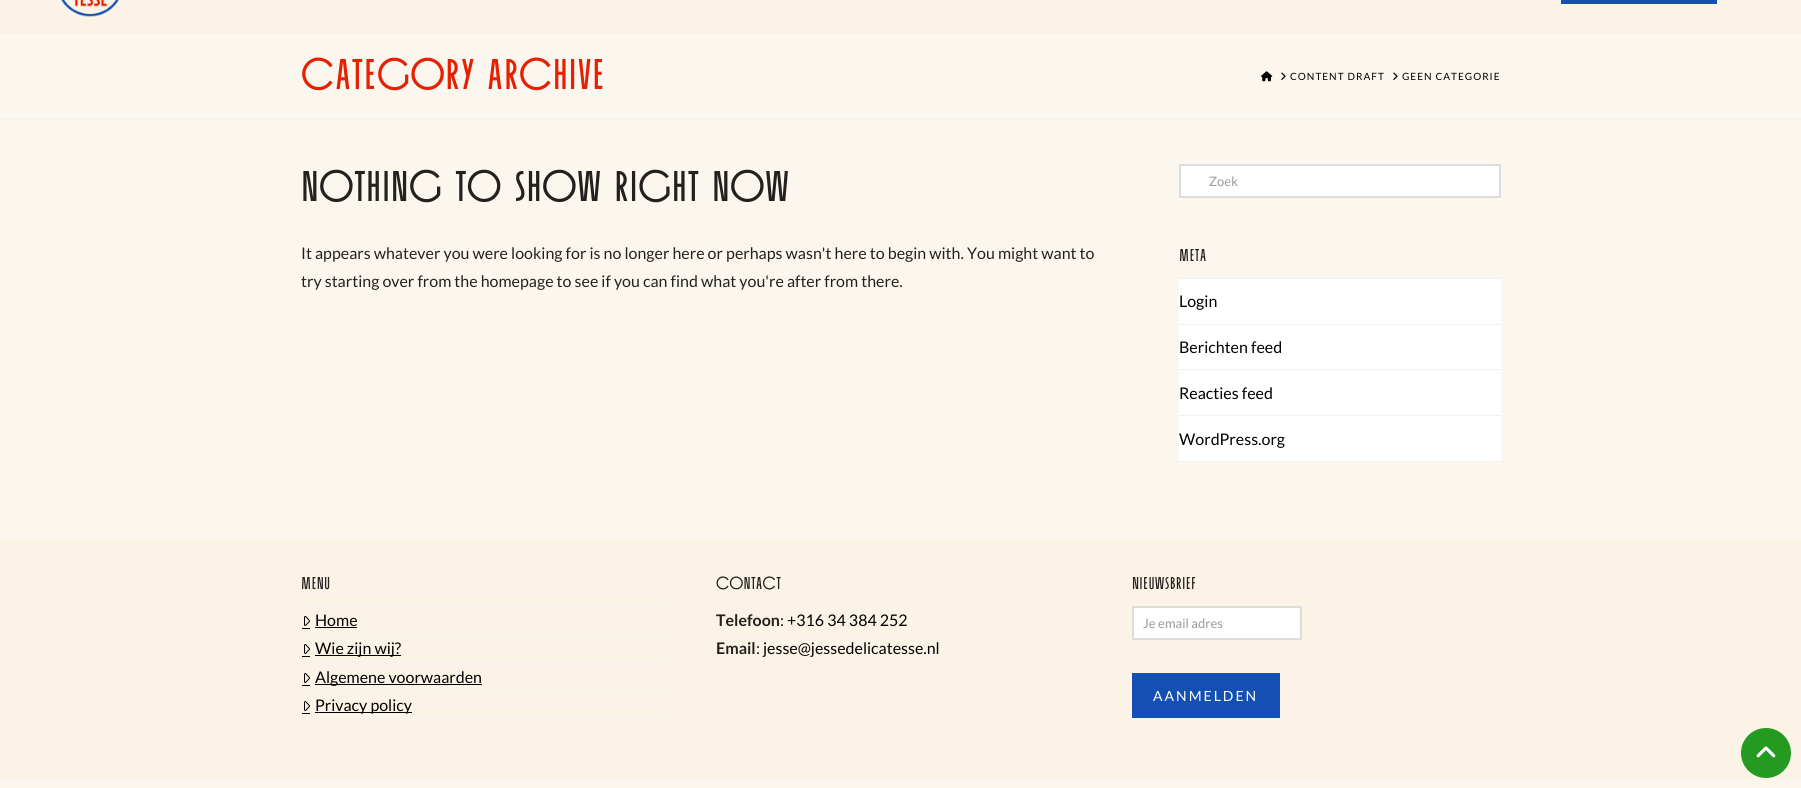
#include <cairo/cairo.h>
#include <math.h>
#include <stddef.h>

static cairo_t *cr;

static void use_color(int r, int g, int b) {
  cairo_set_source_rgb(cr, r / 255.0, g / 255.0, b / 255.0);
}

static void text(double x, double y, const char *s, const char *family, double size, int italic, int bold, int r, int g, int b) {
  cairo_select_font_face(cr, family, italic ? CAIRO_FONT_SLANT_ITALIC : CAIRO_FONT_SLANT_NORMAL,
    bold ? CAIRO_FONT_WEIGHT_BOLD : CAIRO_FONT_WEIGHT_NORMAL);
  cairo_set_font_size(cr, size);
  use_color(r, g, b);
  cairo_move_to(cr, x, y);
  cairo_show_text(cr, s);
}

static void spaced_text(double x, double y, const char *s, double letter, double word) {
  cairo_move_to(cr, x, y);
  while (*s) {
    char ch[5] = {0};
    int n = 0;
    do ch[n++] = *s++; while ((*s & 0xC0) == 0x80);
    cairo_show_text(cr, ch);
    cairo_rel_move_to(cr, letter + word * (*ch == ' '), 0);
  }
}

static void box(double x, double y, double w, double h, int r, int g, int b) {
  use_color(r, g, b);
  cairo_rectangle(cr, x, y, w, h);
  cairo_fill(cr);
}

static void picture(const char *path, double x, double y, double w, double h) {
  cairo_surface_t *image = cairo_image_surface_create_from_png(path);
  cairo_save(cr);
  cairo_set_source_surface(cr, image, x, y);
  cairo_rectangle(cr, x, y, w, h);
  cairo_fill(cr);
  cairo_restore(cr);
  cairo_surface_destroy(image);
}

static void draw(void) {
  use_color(252, 247, 238);
  cairo_paint(cr);
  box(0, 0, 1801, 33, 251, 243, 229);
  picture("img_01.png", 61, 0, 58, 17);
  box(1561, 0, 156, 4, 20, 80, 180);
  box(0, 33, 1801, 1, 242, 242, 242);
  box(0, 119, 1801, 1, 242, 242, 242);
  picture("img_02.png", 1261, 71, 12, 11);
  picture("img_03.png", 1281, 72, 5, 8);
  picture("img_03.png", 1393, 72, 5, 8);
  use_color(255, 255, 255);
  cairo_rectangle(cr, 1180, 165, 320, 32);
  cairo_fill_preserve(cr);
  use_color(221, 221, 221);
  cairo_stroke(cr);
  box(1179, 278, 322, 1, 242, 242, 242);
  box(1179, 279, 322, 45, 255, 255, 255);
  box(1179, 324, 322, 1, 242, 242, 242);
  box(1179, 325, 322, 44, 255, 255, 255);
  box(1179, 369, 322, 1, 242, 242, 242);
  box(1179, 370, 322, 45, 255, 255, 255);
  box(1179, 415, 322, 1, 242, 242, 242);
  box(1179, 416, 322, 45, 255, 255, 255);
  box(1179, 461, 322, 1, 242, 242, 242);
  box(0, 538, 1801, 241, 251, 243, 229);
  box(301, 718, 367, 1, 242, 242, 242);
  box(301, 606, 367, 1, 242, 242, 242);
  box(302, 628, 8, 1, 0, 0, 0);
  picture("img_04.png", 304, 616, 6, 10);
  box(315, 627, 42, 1, 0, 0, 0);
  box(301, 634, 367, 1, 242, 242, 242);
  box(302, 656, 8, 1, 0, 0, 0);
  picture("img_04.png", 304, 644, 6, 10);
  box(315, 655, 86, 1, 0, 0, 0);
  box(301, 662, 367, 1, 242, 242, 242);
  box(302, 685, 8, 1, 0, 0, 0);
  picture("img_04.png", 304, 673, 6, 10);
  box(315, 684, 167, 1, 0, 0, 0);
  box(301, 690, 367, 1, 242, 242, 242);
  box(302, 713, 8, 1, 0, 0, 0);
  picture("img_04.png", 304, 701, 6, 10);
  box(315, 712, 97, 1, 0, 0, 0);
  use_color(255, 255, 255);
  cairo_rectangle(cr, 1133, 607, 168, 32);
  cairo_fill_preserve(cr);
  use_color(221, 221, 221);
  cairo_stroke(cr);
  box(1132, 673, 148, 45, 20, 80, 180);
  use_color(36, 154, 33);
  cairo_arc(cr, 1766, 753, 25, 0, 2 * M_PI);
  cairo_fill(cr);
  picture("img_05.png", 1756, 746, 20, 12);
  cairo_select_font_face(cr, "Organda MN", CAIRO_FONT_SLANT_NORMAL, CAIRO_FONT_WEIGHT_BOLD);
  cairo_set_font_size(cr, 45);
  use_color(230, 32, 3);
  spaced_text(301, 89, "CATEGORY ARCHIVE", 0.45, 0);
  cairo_select_font_face(cr, "Lato", CAIRO_FONT_SLANT_NORMAL, CAIRO_FONT_WEIGHT_NORMAL);
  cairo_set_font_size(cr, 10);
  use_color(0, 0, 0);
  spaced_text(1290, 80, "CONTENT DRAFT", 1, 0);
  spaced_text(1402, 80, "GEEN CATEGORIE", 1, 0);
  cairo_select_font_face(cr, "Organda MN", CAIRO_FONT_SLANT_NORMAL, CAIRO_FONT_WEIGHT_BOLD);
  cairo_set_font_size(cr, 45);
  use_color(36, 32, 31);
  spaced_text(301, 201, "NOTHING TO SHOW RIGHT NOW", 0.45, 0);
  text(301, 259, "It appears whatever you were looking for is no longer here or perhaps wasn't here to begin with. You might want to", "Lato", 16, 0, 0, 36, 32, 31);
  text(301, 287, "try starting over from the homepage to see if you can find what you're after from there.", "Lato", 16, 0, 0, 36, 32, 31);
  text(1209, 186, "Zoek", "Lato", 13, 0, 0, 153, 153, 153);
  cairo_select_font_face(cr, "Organda MN", CAIRO_FONT_SLANT_NORMAL, CAIRO_FONT_WEIGHT_BOLD);
  cairo_set_font_size(cr, 18);
  use_color(36, 32, 31);
  spaced_text(1179, 261, "META", 0.25, 0);
  text(1179, 307, "Login", "Lato", 16, 0, 0, 0, 0, 0);
  text(1179, 353, "Berichten feed", "Lato", 16, 0, 0, 0, 0, 0);
  text(1179, 399, "Reacties feed", "Lato", 16, 0, 0, 0, 0, 0);
  text(1179, 445, "WordPress.org", "Lato", 16, 0, 0, 0, 0, 0);
  cairo_select_font_face(cr, "Organda MN", CAIRO_FONT_SLANT_NORMAL, CAIRO_FONT_WEIGHT_BOLD);
  cairo_set_font_size(cr, 18);
  use_color(36, 32, 31);
  spaced_text(301, 589, "MENU", 0.25, 0);
  text(315, 626, "Home", "Lato", 16, 0, 0, 0, 0, 0);
  text(315, 654, "Wie zijn wij?", "Lato", 16, 0, 0, 0, 0, 0);
  text(315, 683, "Algemene voorwaarden", "Lato", 16, 0, 0, 0, 0, 0);
  text(315, 711, "Privacy policy", "Lato", 16, 0, 0, 0, 0, 0);
  cairo_select_font_face(cr, "Organda MN", CAIRO_FONT_SLANT_NORMAL, CAIRO_FONT_WEIGHT_BOLD);
  cairo_set_font_size(cr, 18);
  use_color(36, 32, 31);
  spaced_text(716, 589, "CONTACT", 0.25, 0);
  text(716, 626, "Telefoon", "Lato", 16, 0, 1, 36, 32, 31);
  text(780, 626, ":", "Lato", 16, 0, 0, 36, 32, 31);
  text(787, 626, "+316 34 384 252", "Lato", 16, 0, 0, 0, 0, 0);
  text(716, 654, "Email", "Lato", 16, 0, 1, 36, 32, 31);
  text(756, 654, ":", "Lato", 16, 0, 0, 36, 32, 31);
  text(763, 654, "jesse@jessedelicatesse.nl", "Lato", 16, 0, 0, 0, 0, 0);
  cairo_select_font_face(cr, "Organda MN", CAIRO_FONT_SLANT_NORMAL, CAIRO_FONT_WEIGHT_BOLD);
  cairo_set_font_size(cr, 18);
  use_color(36, 32, 31);
  spaced_text(1132, 589, "NIEUWSBRIEF", 0.25, 0);
  text(1143, 628, "Je email adres", "Lato", 13, 0, 0, 153, 153, 153);
  cairo_set_font_size(cr, 14);
  use_color(255, 255, 255);
  spaced_text(1153, 701, "AANMELDEN", 2, 0);
}

int main(void) {
  cairo_surface_t *surface = cairo_image_surface_create(CAIRO_FORMAT_RGB24, 1801, 788);
  cr = cairo_create(surface);
  cairo_font_options_t *options = cairo_font_options_create();
  cairo_font_options_set_hint_metrics(options, CAIRO_HINT_METRICS_OFF);
  cairo_font_options_set_hint_style(options, CAIRO_HINT_STYLE_NONE);
  cairo_set_font_options(cr, options);
  cairo_set_miter_limit(cr, 4);
  draw();
  cairo_surface_write_to_png(surface, "out.png");
  cairo_font_options_destroy(options);
  cairo_destroy(cr);
  cairo_surface_destroy(surface);
  return 0;
}
